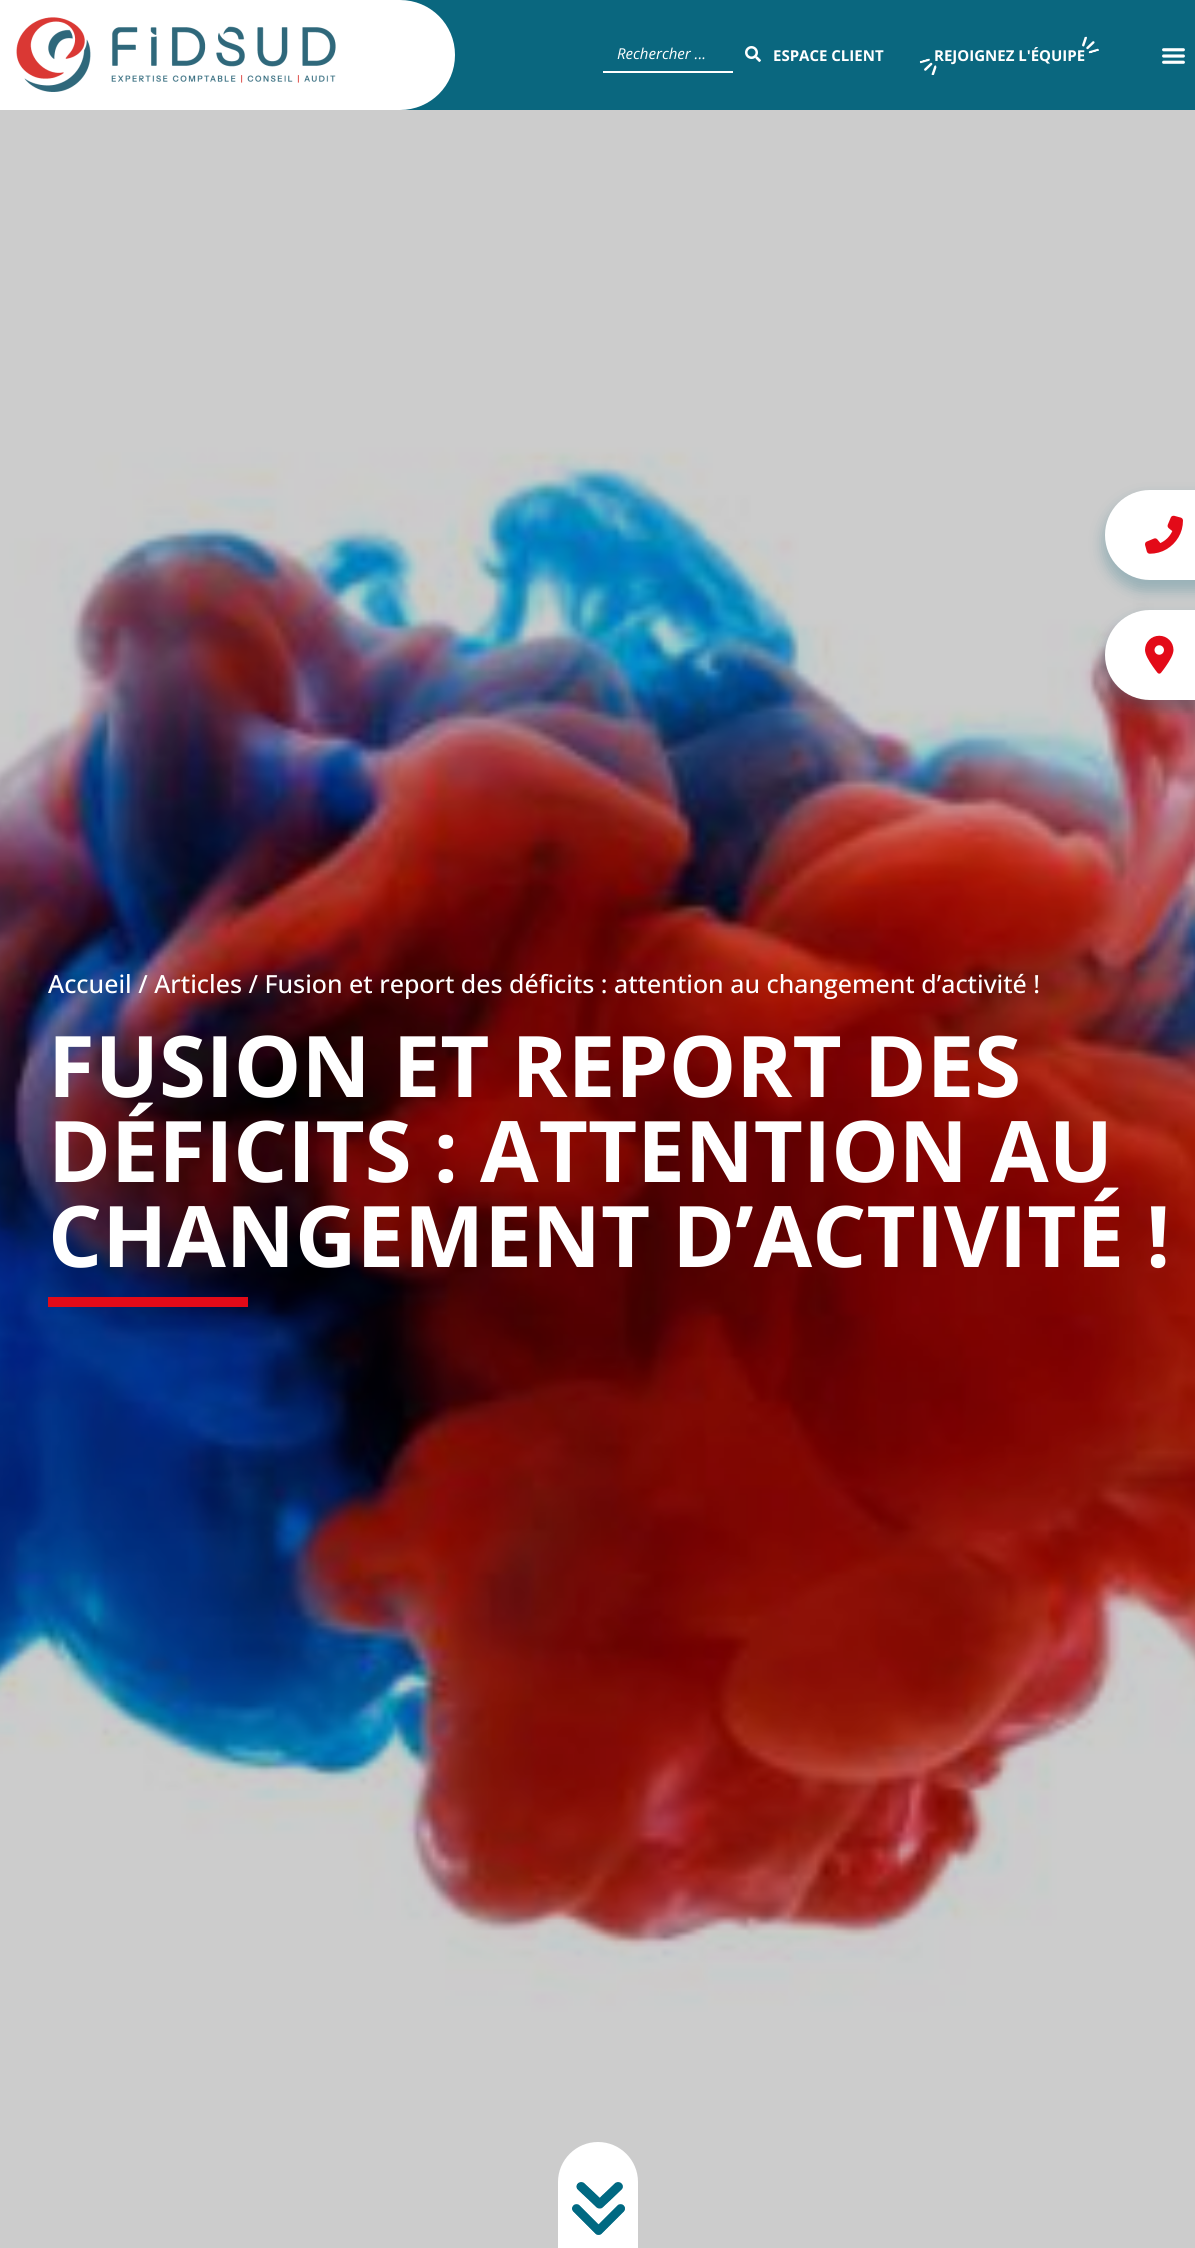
#include <cairo/cairo.h>
#include <math.h>
#include <stddef.h>

static cairo_t *cr;

static void use_color(int r, int g, int b) {
  cairo_set_source_rgb(cr, r / 255.0, g / 255.0, b / 255.0);
}

static void text(double x, double y, const char *s, const char *family, double size, int italic, int bold, int r, int g, int b) {
  cairo_select_font_face(cr, family, italic ? CAIRO_FONT_SLANT_ITALIC : CAIRO_FONT_SLANT_NORMAL,
    bold ? CAIRO_FONT_WEIGHT_BOLD : CAIRO_FONT_WEIGHT_NORMAL);
  cairo_set_font_size(cr, size);
  use_color(r, g, b);
  cairo_move_to(cr, x, y);
  cairo_show_text(cr, s);
}

static void box(double x, double y, double w, double h, int r, int g, int b) {
  use_color(r, g, b);
  cairo_rectangle(cr, x, y, w, h);
  cairo_fill(cr);
}

static void round_rect(double x, double y, double w, double h, double r) {
  cairo_new_sub_path(cr);
  cairo_arc(cr, x + w - r, y + h - r, r, 0, M_PI / 2);
  cairo_arc(cr, x + r, y + h - r, r, M_PI / 2, M_PI);
  cairo_arc(cr, x + r, y + r, r, M_PI, 1.5 * M_PI);
  cairo_arc(cr, x + w - r, y + r, r, 1.5 * M_PI, 2 * M_PI);
  cairo_close_path(cr);
}

static void shadow(double x, double y, double w, double h, double r, double blur, double alpha) {
  cairo_push_group_with_content(cr, CAIRO_CONTENT_ALPHA);
  cairo_set_operator(cr, CAIRO_OPERATOR_SOURCE);
  for (int i = 15; i >= -15 && fmin(w, h) + blur * i / 3 > 0; i -= 2) {
    double e = blur * i / 6;
    cairo_set_source_rgba(cr, 0, 0, 0, alpha * erfc((i - 1) / 8.5) / 2);
    round_rect(x - e, y - e, w + 2 * e, h + 2 * e, fmax(0, fmin(r + e + blur * .6, fmin(w, h) / 2 + e)));
    cairo_fill(cr);
  }
  cairo_pattern_t *soft = cairo_pop_group(cr);
  cairo_mask(cr, soft);
  cairo_pattern_destroy(soft);
}

static void picture(const char *path, double x, double y, double w, double h) {
  cairo_surface_t *image = cairo_image_surface_create_from_png(path);
  cairo_save(cr);
  cairo_set_source_surface(cr, image, x, y);
  cairo_rectangle(cr, x, y, w, h);
  cairo_fill(cr);
  cairo_restore(cr);
  cairo_surface_destroy(image);
}

static void draw(void) {
  use_color(255, 255, 255);
  cairo_paint(cr);
  box(400, 0, 795, 110, 10, 103, 127);
  use_color(255, 255, 255);
  cairo_new_path(cr);
  cairo_move_to(cr, 0, 0);
  cairo_line_to(cr, 400, 0);
  cairo_curve_to(cr, 430.5, 0, 455, 24.5, 455, 55);
  cairo_curve_to(cr, 455, 85.5, 430.5, 110, 400, 110);
  cairo_line_to(cr, 0, 110);
  cairo_close_path(cr);
  cairo_fill(cr);
  picture("img_01.png", 16, 17, 320, 75);
  box(603, 71, 130, 2, 255, 255, 255);
  picture("img_02.png", 745, 46, 16, 16);
  picture("img_05.png", 1162, 48, 23, 16);
  picture("img_08.png", 0, 110, 1195, 2138);
  use_color(10, 103, 127);
  shadow(1102, 616, 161, 96, 48, 6.5, 0.26);
  use_color(255, 255, 255);
  cairo_new_path(cr);
  cairo_move_to(cr, 1150, 610);
  cairo_line_to(cr, 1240, 610);
  cairo_line_to(cr, 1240, 700);
  cairo_line_to(cr, 1150, 700);
  cairo_curve_to(cr, 1125, 700, 1105, 680, 1105, 655);
  cairo_curve_to(cr, 1105, 630, 1125, 610, 1150, 610);
  cairo_close_path(cr);
  cairo_fill(cr);
  use_color(10, 103, 127);
  shadow(1102, 496, 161, 96, 48, 6.5, 0.26);
  use_color(255, 255, 255);
  cairo_new_path(cr);
  cairo_move_to(cr, 1150, 490);
  cairo_line_to(cr, 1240, 490);
  cairo_line_to(cr, 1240, 580);
  cairo_line_to(cr, 1150, 580);
  cairo_curve_to(cr, 1125, 580, 1105, 560, 1105, 535);
  cairo_curve_to(cr, 1105, 510, 1125, 490, 1150, 490);
  cairo_close_path(cr);
  cairo_fill(cr);
  picture("img_06.png", 1145, 515, 38, 39);
  picture("img_07.png", 1145, 635, 29, 39);
  box(48, 1297, 200, 10, 227, 10, 24);
  use_color(255, 255, 255);
  cairo_new_path(cr);
  cairo_move_to(cr, 598, 2142);
  cairo_curve_to(cr, 620, 2142, 638, 2160, 638, 2182);
  cairo_line_to(cr, 638, 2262);
  cairo_line_to(cr, 558, 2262);
  cairo_line_to(cr, 558, 2182);
  cairo_curve_to(cr, 558, 2160, 576, 2142, 598, 2142);
  cairo_close_path(cr);
  cairo_fill(cr);
  picture("img_09.png", 572, 2182, 53, 53);
  text(617, 59, "Rechercher ...", "Open Sans", 15, 1, 0, 255, 255, 255);
  text(773, 61, "ESPACE CLIENT", "Open Sans", 15, 0, 1, 255, 255, 255);
  text(934, 61, "REJOIGNEZ L'ÉQUIPE", "Open Sans", 15, 0, 1, 255, 255, 255);
  picture("img_03.png", 1082, 36, 17, 18);
  picture("img_04.png", 919, 58, 18, 17);
  text(48, 993, "Accueil / Articles / Fusion et report des déficits : attention au changement d’activité !", "Open Sans Medium", 25, 0, 0, 255, 255, 255);
  text(48, 1097, "FUSION ET REPORT DES", "Open Sans", 85, 0, 1, 255, 255, 255);
  text(48, 1182, "DÉFICITS : ATTENTION AU", "Open Sans", 85, 0, 1, 255, 255, 255);
  text(48, 1267, "CHANGEMENT D’ACTIVITÉ !", "Open Sans", 85, 0, 1, 255, 255, 255);
}

int main(void) {
  cairo_surface_t *surface = cairo_image_surface_create(CAIRO_FORMAT_RGB24, 1195, 2248);
  cr = cairo_create(surface);
  cairo_font_options_t *options = cairo_font_options_create();
  cairo_font_options_set_hint_metrics(options, CAIRO_HINT_METRICS_OFF);
  cairo_font_options_set_hint_style(options, CAIRO_HINT_STYLE_NONE);
  cairo_set_font_options(cr, options);
  cairo_set_miter_limit(cr, 4);
  draw();
  cairo_surface_write_to_png(surface, "out.png");
  cairo_font_options_destroy(options);
  cairo_destroy(cr);
  cairo_surface_destroy(surface);
  return 0;
}
